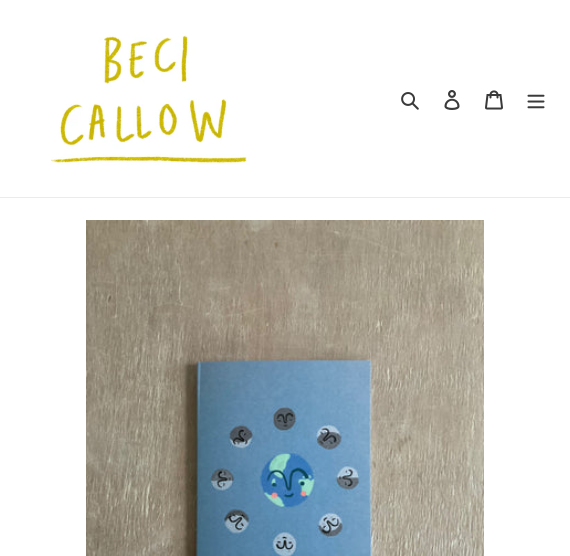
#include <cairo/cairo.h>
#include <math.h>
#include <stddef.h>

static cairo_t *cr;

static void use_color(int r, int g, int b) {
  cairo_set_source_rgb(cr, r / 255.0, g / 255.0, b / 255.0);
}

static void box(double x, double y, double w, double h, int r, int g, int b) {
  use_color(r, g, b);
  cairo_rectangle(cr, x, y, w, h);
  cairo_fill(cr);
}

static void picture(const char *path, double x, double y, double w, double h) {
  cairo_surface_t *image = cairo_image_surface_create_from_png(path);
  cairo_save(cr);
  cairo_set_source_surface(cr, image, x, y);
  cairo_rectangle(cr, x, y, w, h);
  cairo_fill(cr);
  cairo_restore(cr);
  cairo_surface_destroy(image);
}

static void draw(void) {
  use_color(255, 255, 255);
  cairo_paint(cr);
  box(0, 197, 570, 1, 235, 235, 235);
  picture("img_01.png", 50, 33, 200, 132);
  picture("img_02.png", 401, 92, 18, 18);
  picture("img_03.png", 444, 90, 16, 20);
  picture("img_04.png", 485, 90, 18, 20);
  picture("img_05.png", 527, 94, 18, 15);
  picture("img_06.png", 86, 220, 398, 336);
}

int main(void) {
  cairo_surface_t *surface = cairo_image_surface_create(CAIRO_FORMAT_RGB24, 570, 556);
  cr = cairo_create(surface);
  cairo_font_options_t *options = cairo_font_options_create();
  cairo_font_options_set_hint_metrics(options, CAIRO_HINT_METRICS_OFF);
  cairo_font_options_set_hint_style(options, CAIRO_HINT_STYLE_NONE);
  cairo_set_font_options(cr, options);
  cairo_set_miter_limit(cr, 4);
  draw();
  cairo_surface_write_to_png(surface, "out.png");
  cairo_font_options_destroy(options);
  cairo_destroy(cr);
  cairo_surface_destroy(surface);
  return 0;
}
